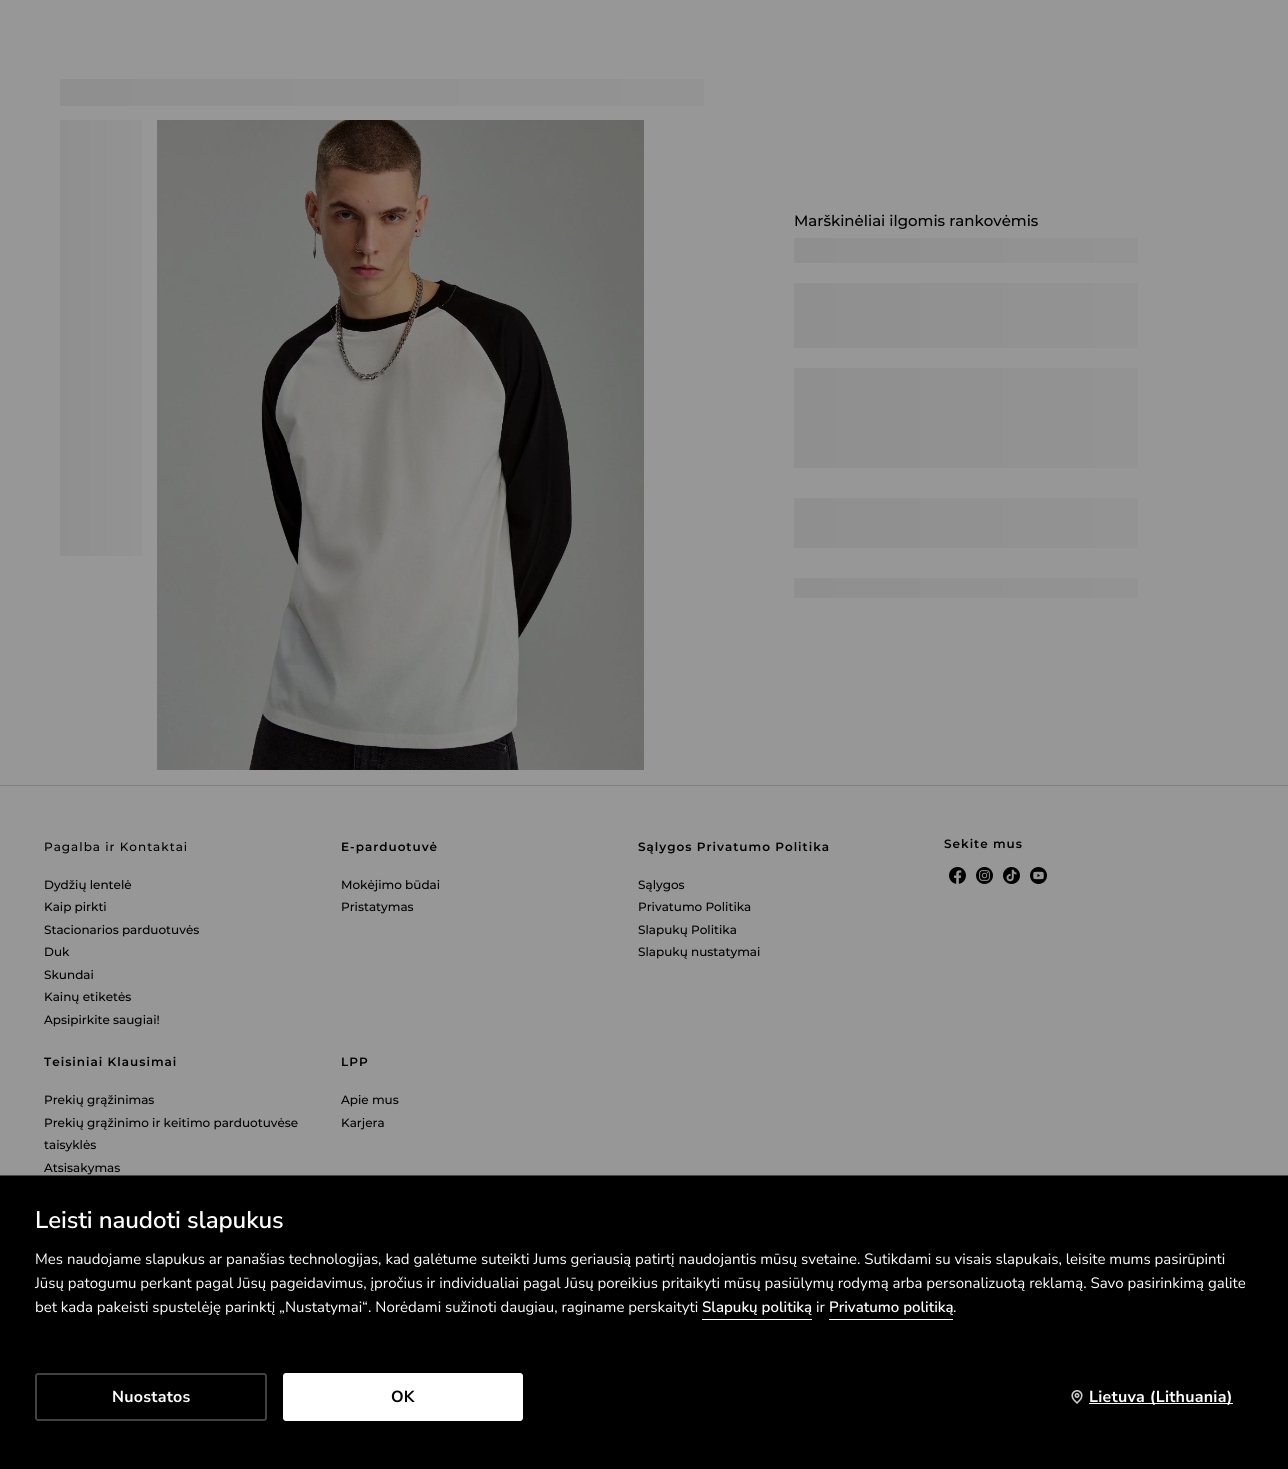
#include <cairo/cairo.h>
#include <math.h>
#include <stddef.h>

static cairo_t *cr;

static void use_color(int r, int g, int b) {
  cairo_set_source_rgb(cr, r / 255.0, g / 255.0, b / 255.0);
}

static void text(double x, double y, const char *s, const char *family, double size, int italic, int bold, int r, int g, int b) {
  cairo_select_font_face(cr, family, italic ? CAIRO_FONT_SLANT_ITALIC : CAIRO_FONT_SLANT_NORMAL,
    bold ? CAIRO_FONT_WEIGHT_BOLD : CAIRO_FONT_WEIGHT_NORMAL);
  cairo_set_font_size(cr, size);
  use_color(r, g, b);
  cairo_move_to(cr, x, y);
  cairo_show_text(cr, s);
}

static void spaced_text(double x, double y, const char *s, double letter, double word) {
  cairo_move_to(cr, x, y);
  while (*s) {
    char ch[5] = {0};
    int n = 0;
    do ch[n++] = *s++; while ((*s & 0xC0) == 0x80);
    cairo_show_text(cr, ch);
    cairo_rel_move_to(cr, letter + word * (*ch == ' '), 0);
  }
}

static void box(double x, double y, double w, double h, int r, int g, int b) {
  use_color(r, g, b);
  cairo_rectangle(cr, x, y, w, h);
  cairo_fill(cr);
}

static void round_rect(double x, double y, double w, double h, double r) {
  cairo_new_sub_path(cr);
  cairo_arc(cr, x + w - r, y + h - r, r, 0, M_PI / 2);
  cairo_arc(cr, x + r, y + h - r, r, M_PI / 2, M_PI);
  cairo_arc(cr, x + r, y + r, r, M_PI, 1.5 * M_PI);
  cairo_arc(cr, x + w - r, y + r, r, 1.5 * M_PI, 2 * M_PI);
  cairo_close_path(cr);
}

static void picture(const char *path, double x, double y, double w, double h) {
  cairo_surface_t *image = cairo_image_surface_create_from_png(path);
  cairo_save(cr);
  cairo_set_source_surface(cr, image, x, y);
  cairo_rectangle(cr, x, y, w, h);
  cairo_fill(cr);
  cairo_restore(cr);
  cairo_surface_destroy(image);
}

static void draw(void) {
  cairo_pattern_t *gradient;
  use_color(151, 151, 151);
  cairo_paint(cr);
  gradient = cairo_pattern_create_linear(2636, 133, 60, 133);
  cairo_pattern_add_color_stop_rgba(gradient, 0, 0.561, 0.561, 0.561, 1);
  cairo_pattern_add_color_stop_rgba(gradient, 0.5, 0.592, 0.592, 0.592, 1);
  cairo_pattern_add_color_stop_rgba(gradient, 1, 0.561, 0.561, 0.561, 1);
  cairo_set_source(cr, gradient);
  cairo_pattern_destroy(gradient);
  cairo_rectangle(cr, 60, 79, 644, 27);
  cairo_fill(cr);
  gradient = cairo_pattern_create_linear(388, 338, 60, 338);
  cairo_pattern_add_color_stop_rgba(gradient, 0, 0.561, 0.561, 0.561, 1);
  cairo_pattern_add_color_stop_rgba(gradient, 0.5, 0.592, 0.592, 0.592, 1);
  cairo_pattern_add_color_stop_rgba(gradient, 1, 0.561, 0.561, 0.561, 1);
  cairo_set_source(cr, gradient);
  cairo_pattern_destroy(gradient);
  cairo_rectangle(cr, 60, 120, 82, 109);
  cairo_fill(cr);
  gradient = cairo_pattern_create_linear(388, 447, 60, 447);
  cairo_pattern_add_color_stop_rgba(gradient, 0, 0.561, 0.561, 0.561, 1);
  cairo_pattern_add_color_stop_rgba(gradient, 0.5, 0.592, 0.592, 0.592, 1);
  cairo_pattern_add_color_stop_rgba(gradient, 1, 0.561, 0.561, 0.561, 1);
  cairo_set_source(cr, gradient);
  cairo_pattern_destroy(gradient);
  cairo_rectangle(cr, 60, 229, 82, 109);
  cairo_fill(cr);
  gradient = cairo_pattern_create_linear(388, 556, 60, 556);
  cairo_pattern_add_color_stop_rgba(gradient, 0, 0.561, 0.561, 0.561, 1);
  cairo_pattern_add_color_stop_rgba(gradient, 0.5, 0.592, 0.592, 0.592, 1);
  cairo_pattern_add_color_stop_rgba(gradient, 1, 0.561, 0.561, 0.561, 1);
  cairo_set_source(cr, gradient);
  cairo_pattern_destroy(gradient);
  cairo_rectangle(cr, 60, 338, 82, 109);
  cairo_fill(cr);
  gradient = cairo_pattern_create_linear(388, 665, 60, 665);
  cairo_pattern_add_color_stop_rgba(gradient, 0, 0.561, 0.561, 0.561, 1);
  cairo_pattern_add_color_stop_rgba(gradient, 0.5, 0.592, 0.592, 0.592, 1);
  cairo_pattern_add_color_stop_rgba(gradient, 1, 0.561, 0.561, 0.561, 1);
  cairo_set_source(cr, gradient);
  cairo_pattern_destroy(gradient);
  cairo_rectangle(cr, 60, 447, 82, 109);
  cairo_fill(cr);
  picture("img_01.png", 157, 120, 487, 650);
  gradient = cairo_pattern_create_linear(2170, 288, 794, 288);
  cairo_pattern_add_color_stop_rgba(gradient, 0, 0.561, 0.561, 0.561, 1);
  cairo_pattern_add_color_stop_rgba(gradient, 0.5, 0.592, 0.592, 0.592, 1);
  cairo_pattern_add_color_stop_rgba(gradient, 1, 0.561, 0.561, 0.561, 1);
  cairo_set_source(cr, gradient);
  cairo_pattern_destroy(gradient);
  cairo_rectangle(cr, 794, 238, 344, 25);
  cairo_fill(cr);
  gradient = cairo_pattern_create_linear(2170, 413, 794, 413);
  cairo_pattern_add_color_stop_rgba(gradient, 0, 0.561, 0.561, 0.561, 1);
  cairo_pattern_add_color_stop_rgba(gradient, 0.5, 0.592, 0.592, 0.592, 1);
  cairo_pattern_add_color_stop_rgba(gradient, 1, 0.561, 0.561, 0.561, 1);
  cairo_set_source(cr, gradient);
  cairo_pattern_destroy(gradient);
  cairo_rectangle(cr, 794, 283, 344, 65);
  cairo_fill(cr);
  gradient = cairo_pattern_create_linear(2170, 568, 794, 568);
  cairo_pattern_add_color_stop_rgba(gradient, 0, 0.561, 0.561, 0.561, 1);
  cairo_pattern_add_color_stop_rgba(gradient, 0.5, 0.592, 0.592, 0.592, 1);
  cairo_pattern_add_color_stop_rgba(gradient, 1, 0.561, 0.561, 0.561, 1);
  cairo_set_source(cr, gradient);
  cairo_pattern_destroy(gradient);
  cairo_rectangle(cr, 794, 368, 344, 100);
  cairo_fill(cr);
  gradient = cairo_pattern_create_linear(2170, 598, 794, 598);
  cairo_pattern_add_color_stop_rgba(gradient, 0, 0.561, 0.561, 0.561, 1);
  cairo_pattern_add_color_stop_rgba(gradient, 0.5, 0.592, 0.592, 0.592, 1);
  cairo_pattern_add_color_stop_rgba(gradient, 1, 0.561, 0.561, 0.561, 1);
  cairo_set_source(cr, gradient);
  cairo_pattern_destroy(gradient);
  cairo_rectangle(cr, 794, 498, 344, 50);
  cairo_fill(cr);
  gradient = cairo_pattern_create_linear(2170, 618, 794, 618);
  cairo_pattern_add_color_stop_rgba(gradient, 0, 0.561, 0.561, 0.561, 1);
  cairo_pattern_add_color_stop_rgba(gradient, 0.5, 0.592, 0.592, 0.592, 1);
  cairo_pattern_add_color_stop_rgba(gradient, 1, 0.561, 0.561, 0.561, 1);
  cairo_set_source(cr, gradient);
  cairo_pattern_destroy(gradient);
  cairo_rectangle(cr, 794, 578, 344, 20);
  cairo_fill(cr);
  box(0, 785, 1288, 1, 130, 129, 125);
  picture("img_02.png", 949, 867, 17, 17);
  picture("img_03.png", 976, 867, 17, 17);
  picture("img_04.png", 1003, 867, 17, 17);
  picture("img_05.png", 1030, 867, 17, 17);
  box(0, 1176, 1288, 293, 0, 0, 0);
  box(0, 1175, 1288, 1, 71, 71, 71);
  box(702, 1319, 110, 1, 255, 255, 255);
  box(829, 1319, 124, 1, 255, 255, 255);
  round_rect(36, 1374, 230, 46, 2);
  use_color(65, 65, 65);
  cairo_stroke(cr);
  use_color(255, 255, 255);
  round_rect(284, 1374, 238, 46, 2);
  cairo_fill_preserve(cr);
  cairo_stroke(cr);
  picture("img_06.png", 1071, 1390, 12, 14);
  box(1089, 1403, 144, 1, 255, 255, 255);
  text(794, 226, "Marškinėliai ilgomis rankovėmis", "Montserrat Medium", 15, 0, 0, 0, 0, 0);
  cairo_set_font_size(cr, 12);
  spaced_text(44, 851, "Pagalba ir Kontaktai", 1, 0);
  text(44, 889, "Dydžių lentelė", "Montserrat Medium", 12, 0, 0, 0, 0, 0);
  text(44, 911, "Kaip pirkti", "Montserrat Medium", 12, 0, 0, 0, 0, 0);
  text(44, 934, "Stacionarios parduotuvės", "Montserrat Medium", 12, 0, 0, 0, 0, 0);
  text(44, 956, "Duk", "Montserrat Medium", 12, 0, 0, 0, 0, 0);
  text(44, 979, "Skundai", "Montserrat Medium", 12, 0, 0, 0, 0, 0);
  text(44, 1001, "Kainų etiketės", "Montserrat Medium", 12, 0, 0, 0, 0, 0);
  text(44, 1024, "Apsipirkite saugiai!", "Montserrat Medium", 12, 0, 0, 0, 0, 0);
  cairo_select_font_face(cr, "Montserrat SemiBold", CAIRO_FONT_SLANT_NORMAL, CAIRO_FONT_WEIGHT_NORMAL);
  spaced_text(341, 851, "E-parduotuvė", 1, 0);
  text(341, 889, "Mokėjimo būdai", "Montserrat Medium", 12, 0, 0, 0, 0, 0);
  text(341, 911, "Pristatymas", "Montserrat Medium", 12, 0, 0, 0, 0, 0);
  cairo_select_font_face(cr, "Montserrat SemiBold", CAIRO_FONT_SLANT_NORMAL, CAIRO_FONT_WEIGHT_NORMAL);
  spaced_text(638, 851, "Sąlygos Privatumo Politika", 1, 0);
  text(638, 889, "Sąlygos", "Montserrat Medium", 12, 0, 0, 0, 0, 0);
  text(638, 911, "Privatumo Politika", "Montserrat Medium", 12, 0, 0, 0, 0, 0);
  text(638, 934, "Slapukų Politika", "Montserrat Medium", 12, 0, 0, 0, 0, 0);
  text(638, 956, "Slapukų nustatymai", "Montserrat Medium", 12, 0, 0, 0, 0, 0);
  cairo_select_font_face(cr, "Montserrat SemiBold", CAIRO_FONT_SLANT_NORMAL, CAIRO_FONT_WEIGHT_NORMAL);
  spaced_text(44, 1066, "Teisiniai Klausimai", 1, 0);
  text(44, 1104, "Prekių grąžinimas", "Montserrat Medium", 12, 0, 0, 0, 0, 0);
  text(44, 1127, "Prekių grąžinimo ir keitimo parduotuvėse", "Montserrat Medium", 12, 0, 0, 0, 0, 0);
  text(44, 1149, "taisyklės", "Montserrat Medium", 12, 0, 0, 0, 0, 0);
  text(44, 1172, "Atsisakymas", "Montserrat Medium", 12, 0, 0, 0, 0, 0);
  cairo_select_font_face(cr, "Montserrat SemiBold", CAIRO_FONT_SLANT_NORMAL, CAIRO_FONT_WEIGHT_NORMAL);
  spaced_text(341, 1066, "LPP", 1, 0);
  text(341, 1104, "Apie mus", "Montserrat Medium", 12, 0, 0, 0, 0, 0);
  text(341, 1127, "Karjera", "Montserrat Medium", 12, 0, 0, 0, 0, 0);
  cairo_select_font_face(cr, "Montserrat SemiBold", CAIRO_FONT_SLANT_NORMAL, CAIRO_FONT_WEIGHT_NORMAL);
  spaced_text(944, 848, "Sekite mus", 1, 0);
  cairo_select_font_face(cr, "Nunito Sans SemiBold", CAIRO_FONT_SLANT_NORMAL, CAIRO_FONT_WEIGHT_NORMAL);
  cairo_set_font_size(cr, 24);
  use_color(255, 255, 255);
  spaced_text(35, 1228, "Leisti naudoti slapukus", -0.1, 0);
  text(35, 1264, "Mes naudojame slapukus ar panašias technologijas, kad galėtume suteikti Jums geriausią patirtį naudojantis mūsų svetaine. Sutikdami su visais slapukais, leisite mums pasirūpinti", "Nunito Sans", 15, 0, 0, 255, 255, 255);
  text(35, 1288, "Jūsų patogumu perkant pagal Jūsų pageidavimus, įpročius ir individualiai pagal Jūsų poreikius pritaikyti mūsų pasiūlymų rodymą arba personalizuotą reklamą. Savo pasirinkimą galite", "Nunito Sans", 15, 0, 0, 255, 255, 255);
  text(35, 1312, "bet kada pakeisti spustelėję parinktį „Nustatymai“. Norėdami sužinoti daugiau, raginame perskaityti", "Nunito Sans", 15, 0, 0, 255, 255, 255);
  text(702, 1312, "Slapukų politiką", "Nunito Sans SemiBold", 15, 0, 0, 255, 255, 255);
  text(816, 1312, "ir", "Nunito Sans", 15, 0, 0, 255, 255, 255);
  text(829, 1312, "Privatumo politiką", "Nunito Sans SemiBold", 15, 0, 0, 255, 255, 255);
  text(953, 1312, ".", "Nunito Sans", 15, 0, 0, 255, 255, 255);
  cairo_select_font_face(cr, "Nunito Sans", CAIRO_FONT_SLANT_NORMAL, CAIRO_FONT_WEIGHT_BOLD);
  cairo_set_font_size(cr, 16);
  spaced_text(112, 1402, "Nuostatos", 0.25, 0);
  use_color(0, 0, 0);
  spaced_text(391, 1402, "OK", 0.25, 0);
  use_color(255, 255, 255);
  spaced_text(1089, 1402, "Lietuva (Lithuania)", 0.25, 0);
}

int main(void) {
  cairo_surface_t *surface = cairo_image_surface_create(CAIRO_FORMAT_RGB24, 1288, 1469);
  cr = cairo_create(surface);
  cairo_font_options_t *options = cairo_font_options_create();
  cairo_font_options_set_hint_metrics(options, CAIRO_HINT_METRICS_OFF);
  cairo_font_options_set_hint_style(options, CAIRO_HINT_STYLE_NONE);
  cairo_set_font_options(cr, options);
  cairo_set_miter_limit(cr, 4);
  draw();
  cairo_surface_write_to_png(surface, "out.png");
  cairo_font_options_destroy(options);
  cairo_destroy(cr);
  cairo_surface_destroy(surface);
  return 0;
}
